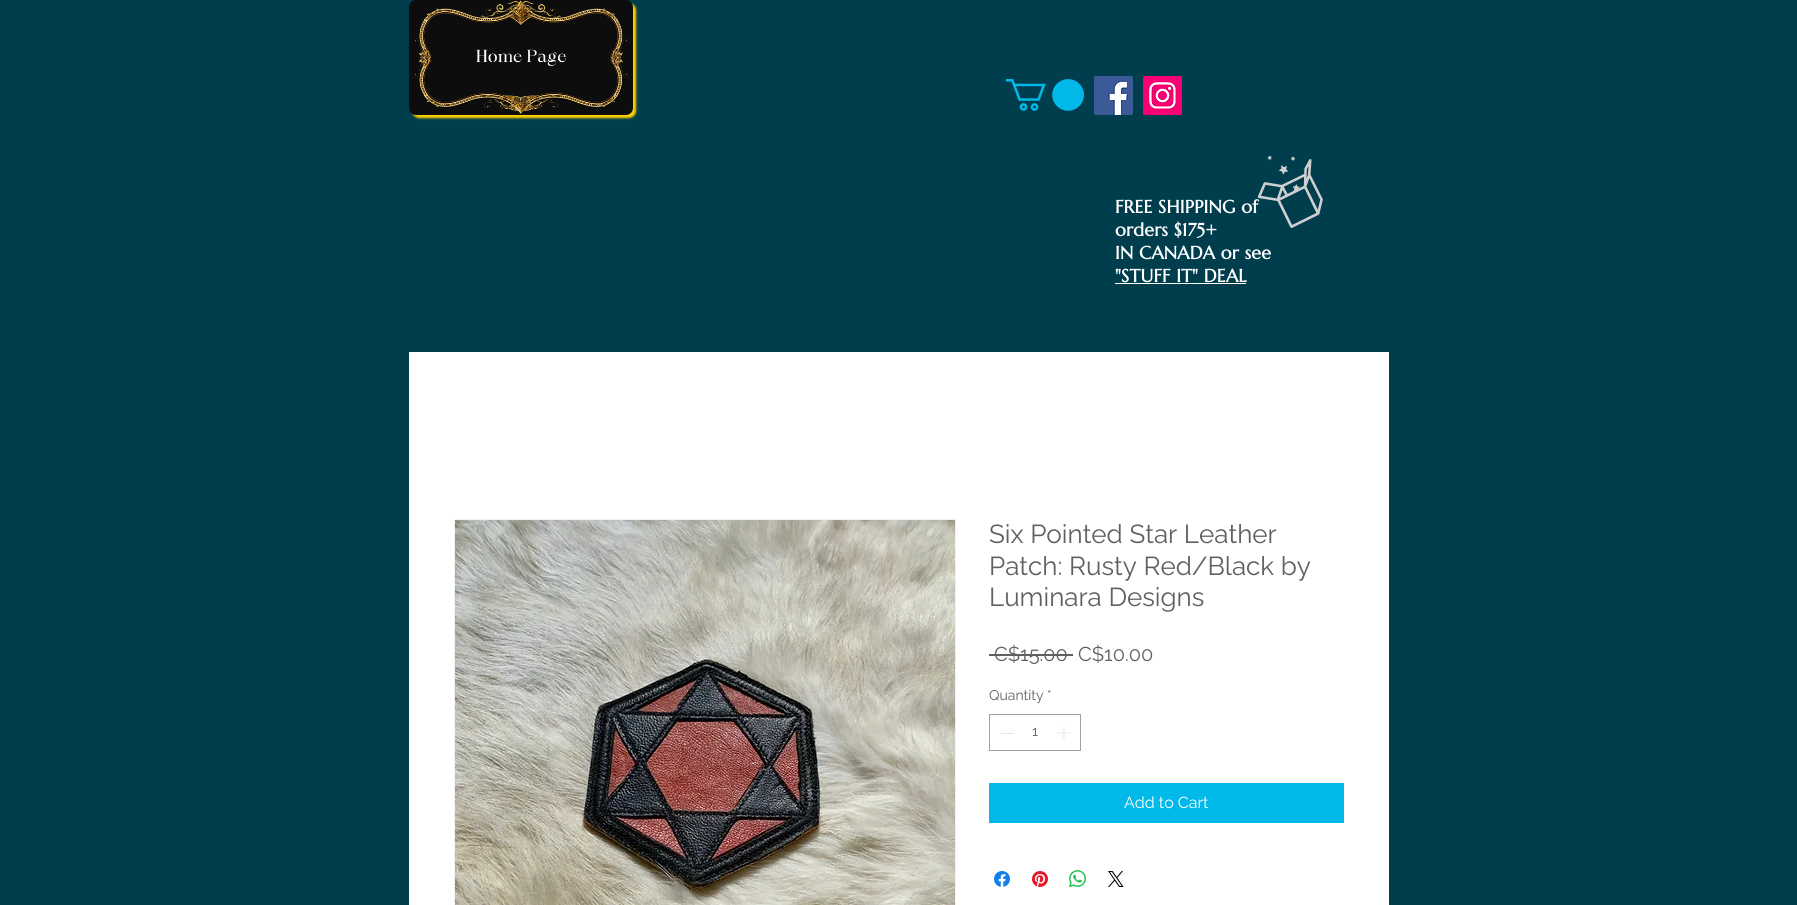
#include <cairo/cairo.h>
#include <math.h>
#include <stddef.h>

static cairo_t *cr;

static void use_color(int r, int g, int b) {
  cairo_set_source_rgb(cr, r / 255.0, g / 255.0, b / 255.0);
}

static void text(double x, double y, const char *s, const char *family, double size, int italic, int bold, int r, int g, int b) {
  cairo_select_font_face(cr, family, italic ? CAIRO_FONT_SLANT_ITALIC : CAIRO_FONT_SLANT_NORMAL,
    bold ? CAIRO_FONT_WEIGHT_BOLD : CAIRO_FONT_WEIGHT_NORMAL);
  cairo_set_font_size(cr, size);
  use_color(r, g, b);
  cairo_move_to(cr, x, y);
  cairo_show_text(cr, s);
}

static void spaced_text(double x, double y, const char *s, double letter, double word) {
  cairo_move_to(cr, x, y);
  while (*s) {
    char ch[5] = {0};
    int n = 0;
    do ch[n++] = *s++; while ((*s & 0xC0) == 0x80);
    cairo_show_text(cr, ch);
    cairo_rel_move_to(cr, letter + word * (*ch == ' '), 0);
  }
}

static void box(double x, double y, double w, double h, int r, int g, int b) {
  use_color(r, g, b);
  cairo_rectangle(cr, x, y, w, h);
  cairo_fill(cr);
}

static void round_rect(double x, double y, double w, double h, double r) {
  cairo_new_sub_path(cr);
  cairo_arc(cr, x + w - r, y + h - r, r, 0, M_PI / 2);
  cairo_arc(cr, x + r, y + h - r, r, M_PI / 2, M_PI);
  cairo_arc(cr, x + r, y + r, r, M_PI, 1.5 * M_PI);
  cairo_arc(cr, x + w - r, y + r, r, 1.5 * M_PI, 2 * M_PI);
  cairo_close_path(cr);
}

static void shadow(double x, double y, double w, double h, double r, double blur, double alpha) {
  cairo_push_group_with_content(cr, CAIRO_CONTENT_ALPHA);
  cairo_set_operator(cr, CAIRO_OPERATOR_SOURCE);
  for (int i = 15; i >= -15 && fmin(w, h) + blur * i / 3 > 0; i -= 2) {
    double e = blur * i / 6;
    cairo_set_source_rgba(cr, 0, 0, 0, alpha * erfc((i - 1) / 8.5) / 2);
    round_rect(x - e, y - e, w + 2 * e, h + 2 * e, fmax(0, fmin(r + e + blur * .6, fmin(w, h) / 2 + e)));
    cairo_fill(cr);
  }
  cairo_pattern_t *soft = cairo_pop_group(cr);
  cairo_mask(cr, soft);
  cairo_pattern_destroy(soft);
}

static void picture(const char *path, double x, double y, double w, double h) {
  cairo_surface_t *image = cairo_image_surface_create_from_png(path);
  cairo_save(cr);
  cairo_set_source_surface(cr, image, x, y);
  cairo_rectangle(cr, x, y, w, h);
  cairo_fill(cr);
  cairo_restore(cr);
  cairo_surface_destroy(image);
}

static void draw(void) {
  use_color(0, 61, 77);
  cairo_paint(cr);
  use_color(255, 208, 0);
  shadow(412, 3, 224, 115, 7, 1, 1);
  picture("img_01.png", 409, 0, 224, 115);
  picture("img_02.png", 1006, 79, 78, 32);
  picture("img_03.png", 1094, 76, 39, 39);
  picture("img_04.png", 1143, 76, 39, 39);
  box(1115, 283, 131, 1, 255, 255, 255);
  box(409, 352, 980, 553, 255, 255, 255);
  cairo_rectangle(cr, 454.5, 519.5, 501, 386);
  use_color(242, 242, 242);
  cairo_set_line_width(cr, 1);
  cairo_stroke(cr);
  picture("img_06.png", 455, 520, 500, 385);
  box(989, 654, 84, 2, 96, 96, 96);
  cairo_rectangle(cr, 989.5, 714.5, 91, 36);
  use_color(160, 160, 160);
  cairo_stroke(cr);
  box(1001, 733, 13, 1, 227, 227, 227);
  picture("img_07.png", 1057, 726, 14, 14);
  box(989, 783, 355, 40, 0, 185, 232);
  picture("img_08.png", 994, 871, 16, 16);
  picture("img_09.png", 1032, 871, 16, 16);
  picture("img_10.png", 1069, 870, 17, 17);
  picture("img_11.png", 1108, 871, 16, 16);
  cairo_select_font_face(cr, "Marcellus", CAIRO_FONT_SLANT_NORMAL, CAIRO_FONT_WEIGHT_BOLD);
  cairo_set_font_size(cr, 18);
  use_color(255, 255, 255);
  spaced_text(1115, 213, "FREE SHIPPING of", 0.2, 0);
  picture("img_05.png", 1257, 155, 66, 73);
  spaced_text(1115, 236, "orders $175+", 0.2, 0);
  spaced_text(1115, 259, "IN CANADA or see", 0.2, 0);
  spaced_text(1115, 282, "\"STUFF IT\" DEAL", 0.2, 0);
  text(989, 543, "Six Pointed Star Leather", "Raleway", 26, 0, 0, 96, 96, 96);
  text(989, 575, "Patch: Rusty Red/Black by", "Raleway", 26, 0, 0, 96, 96, 96);
  text(989, 606, "Luminara Designs", "Raleway", 26, 0, 0, 96, 96, 96);
  text(994, 661, "C$15.00", "Raleway", 20, 0, 0, 96, 96, 96);
  text(1078, 661, "C$10.00", "Raleway", 20, 0, 0, 96, 96, 96);
  text(989, 700, "Quantity", "Raleway", 14, 0, 0, 96, 96, 96);
  text(1047, 700, "*", "Raleway", 14, 0, 0, 96, 96, 96);
  text(1032, 736, "1", "Raleway", 14, 0, 0, 96, 96, 96);
  text(1124, 808, "Add to Cart", "Raleway", 16, 0, 0, 255, 255, 255);
}

int main(void) {
  cairo_surface_t *surface = cairo_image_surface_create(CAIRO_FORMAT_RGB24, 1797, 905);
  cr = cairo_create(surface);
  cairo_font_options_t *options = cairo_font_options_create();
  cairo_font_options_set_hint_metrics(options, CAIRO_HINT_METRICS_OFF);
  cairo_font_options_set_hint_style(options, CAIRO_HINT_STYLE_NONE);
  cairo_set_font_options(cr, options);
  cairo_set_miter_limit(cr, 4);
  draw();
  cairo_surface_write_to_png(surface, "out.png");
  cairo_font_options_destroy(options);
  cairo_destroy(cr);
  cairo_surface_destroy(surface);
  return 0;
}
